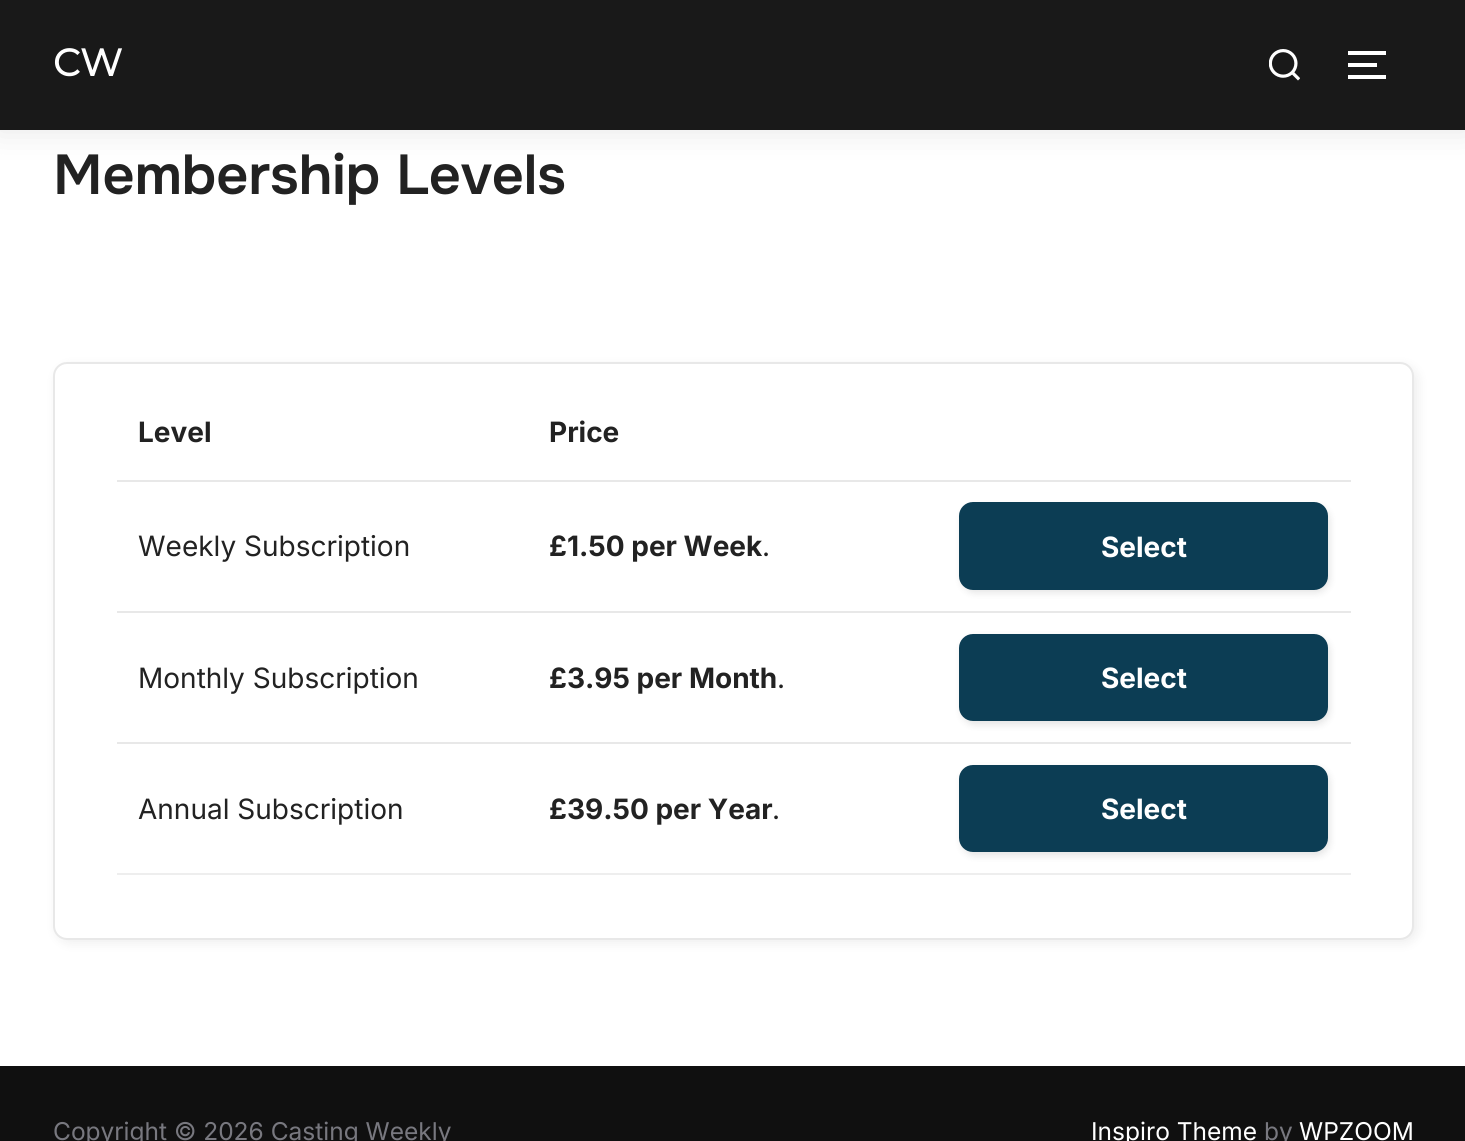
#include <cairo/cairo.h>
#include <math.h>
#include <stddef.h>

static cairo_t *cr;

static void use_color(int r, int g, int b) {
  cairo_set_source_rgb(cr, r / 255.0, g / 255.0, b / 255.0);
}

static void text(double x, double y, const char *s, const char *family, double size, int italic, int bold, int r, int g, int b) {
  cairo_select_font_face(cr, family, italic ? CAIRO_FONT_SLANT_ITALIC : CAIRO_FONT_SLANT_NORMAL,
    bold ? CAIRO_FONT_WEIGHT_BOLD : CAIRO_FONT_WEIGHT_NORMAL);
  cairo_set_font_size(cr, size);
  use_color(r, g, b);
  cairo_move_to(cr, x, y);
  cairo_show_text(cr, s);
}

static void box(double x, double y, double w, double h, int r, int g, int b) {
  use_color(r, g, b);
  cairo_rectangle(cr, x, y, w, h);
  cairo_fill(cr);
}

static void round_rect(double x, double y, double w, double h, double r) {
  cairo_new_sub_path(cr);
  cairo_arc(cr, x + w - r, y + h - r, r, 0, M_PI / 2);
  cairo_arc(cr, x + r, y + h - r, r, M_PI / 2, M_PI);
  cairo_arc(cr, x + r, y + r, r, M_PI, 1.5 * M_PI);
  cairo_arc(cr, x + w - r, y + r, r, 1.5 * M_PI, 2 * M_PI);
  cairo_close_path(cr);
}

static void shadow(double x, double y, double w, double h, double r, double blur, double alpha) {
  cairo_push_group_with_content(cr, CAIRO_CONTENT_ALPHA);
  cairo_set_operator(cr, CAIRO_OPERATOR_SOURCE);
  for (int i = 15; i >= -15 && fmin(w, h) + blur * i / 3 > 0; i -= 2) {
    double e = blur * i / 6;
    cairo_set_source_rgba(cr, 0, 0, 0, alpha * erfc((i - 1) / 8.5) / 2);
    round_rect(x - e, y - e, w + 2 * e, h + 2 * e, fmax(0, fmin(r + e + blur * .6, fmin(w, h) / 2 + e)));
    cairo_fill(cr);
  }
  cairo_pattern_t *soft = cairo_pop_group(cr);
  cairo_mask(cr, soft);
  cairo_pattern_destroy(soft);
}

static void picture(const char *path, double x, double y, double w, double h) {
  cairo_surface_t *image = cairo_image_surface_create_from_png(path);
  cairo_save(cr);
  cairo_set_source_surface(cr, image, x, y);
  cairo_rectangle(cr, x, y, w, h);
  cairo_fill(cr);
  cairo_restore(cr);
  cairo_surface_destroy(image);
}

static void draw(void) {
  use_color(255, 255, 255);
  cairo_paint(cr);
  cairo_save(cr);
  cairo_set_fill_rule(cr, CAIRO_FILL_RULE_EVEN_ODD);
  cairo_new_path(cr);
  cairo_move_to(cr, 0, 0);
  cairo_line_to(cr, 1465, 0);
  cairo_line_to(cr, 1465, 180);
  cairo_line_to(cr, 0, 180);
  cairo_close_path(cr);
  cairo_move_to(cr, 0, 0);
  cairo_line_to(cr, 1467, 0);
  cairo_line_to(cr, 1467, 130);
  cairo_line_to(cr, 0, 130);
  cairo_close_path(cr);
  cairo_clip(cr);
  use_color(0, 0, 0);
  shadow(-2, -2, 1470, 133, 0, 16, 0.1);
  cairo_restore(cr);
  cairo_set_source_rgba(cr, 0, 0, 0, 0.9);
  cairo_rectangle(cr, 0, 0, 1465, 130);
  cairo_fill(cr);
  picture("img_01.png", 1269, 49, 31, 32);
  box(1348, 51, 38, 4, 255, 255, 255);
  box(1348, 63, 29, 4, 255, 255, 255);
  box(1348, 75, 38, 4, 255, 255, 255);
  use_color(0, 0, 0);
  shadow(56, 366, 1362, 577, 14, 6, 0.07);
  use_color(255, 255, 255);
  round_rect(54, 363, 1359, 576, 13);
  cairo_fill_preserve(cr);
  use_color(232, 232, 232);
  cairo_stroke(cr);
  box(117, 480, 1234, 2, 232, 232, 232);
  use_color(0, 0, 0);
  shadow(961, 506, 369, 87, 14, 3.5, 0.1);
  use_color(12, 61, 84);
  round_rect(960, 503, 367, 86, 13);
  cairo_fill_preserve(cr);
  cairo_stroke(cr);
  box(117, 611, 1234, 2, 232, 232, 232);
  use_color(0, 0, 0);
  shadow(961, 637, 369, 88, 14, 3.5, 0.1);
  use_color(12, 61, 84);
  round_rect(960, 635, 367, 85, 13);
  cairo_fill_preserve(cr);
  cairo_stroke(cr);
  box(117, 873, 1234, 2, 238, 238, 238);
  box(117, 742, 1234, 2, 232, 232, 232);
  use_color(0, 0, 0);
  shadow(961, 768, 369, 88, 14, 3.5, 0.1);
  use_color(12, 61, 84);
  round_rect(960, 766, 367, 85, 13);
  cairo_fill_preserve(cr);
  cairo_stroke(cr);
  box(0, 1066, 1465, 75, 16, 16, 16);
  text(53, 76, "CW", "Montserrat", 38, 0, 1, 255, 255, 255);
  text(53, 194, "Membership Levels", "Onest SemiBold", 56, 0, 0, 34, 34, 34);
  text(138, 442, "Level", "Inter", 28, 0, 1, 34, 34, 34);
  text(549, 442, "Price", "Inter", 28, 0, 1, 34, 34, 34);
  text(138, 556, "Weekly Subscription", "Inter", 28, 0, 0, 34, 34, 34);
  text(549, 556, "£1.50 per Week", "Inter", 28, 0, 1, 34, 34, 34);
  text(762, 556, ".", "Inter", 28, 0, 0, 34, 34, 34);
  text(1101, 557, "Select", "Inter", 28, 0, 1, 255, 255, 255);
  text(138, 688, "Monthly Subscription", "Inter", 28, 0, 0, 34, 34, 34);
  text(549, 688, "£3.95 per Month", "Inter", 28, 0, 1, 34, 34, 34);
  text(777, 688, ".", "Inter", 28, 0, 0, 34, 34, 34);
  text(1101, 688, "Select", "Inter", 28, 0, 1, 255, 255, 255);
  text(138, 819, "Annual Subscription", "Inter", 28, 0, 0, 34, 34, 34);
  text(549, 819, "£39.50 per Year", "Inter", 28, 0, 1, 34, 34, 34);
  text(772, 819, ".", "Inter", 28, 0, 0, 34, 34, 34);
  text(1101, 819, "Select", "Inter", 28, 0, 1, 255, 255, 255);
  text(53, 1140, "Copyright © 2026 Casting Weekly", "Inter", 24.5, 0, 0, 120, 120, 127);
  text(1091, 1140, "Inspiro Theme", "Inter", 24.5, 0, 0, 255, 255, 255);
  text(1264, 1140, "by", "Inter", 24.5, 0, 0, 120, 120, 127);
  text(1299, 1140, "WPZOOM", "Inter", 24.5, 0, 0, 255, 255, 255);
}

int main(void) {
  cairo_surface_t *surface = cairo_image_surface_create(CAIRO_FORMAT_RGB24, 1465, 1141);
  cr = cairo_create(surface);
  cairo_font_options_t *options = cairo_font_options_create();
  cairo_font_options_set_hint_metrics(options, CAIRO_HINT_METRICS_OFF);
  cairo_font_options_set_hint_style(options, CAIRO_HINT_STYLE_NONE);
  cairo_set_font_options(cr, options);
  cairo_set_miter_limit(cr, 4);
  draw();
  cairo_surface_write_to_png(surface, "out.png");
  cairo_font_options_destroy(options);
  cairo_destroy(cr);
  cairo_surface_destroy(surface);
  return 0;
}
